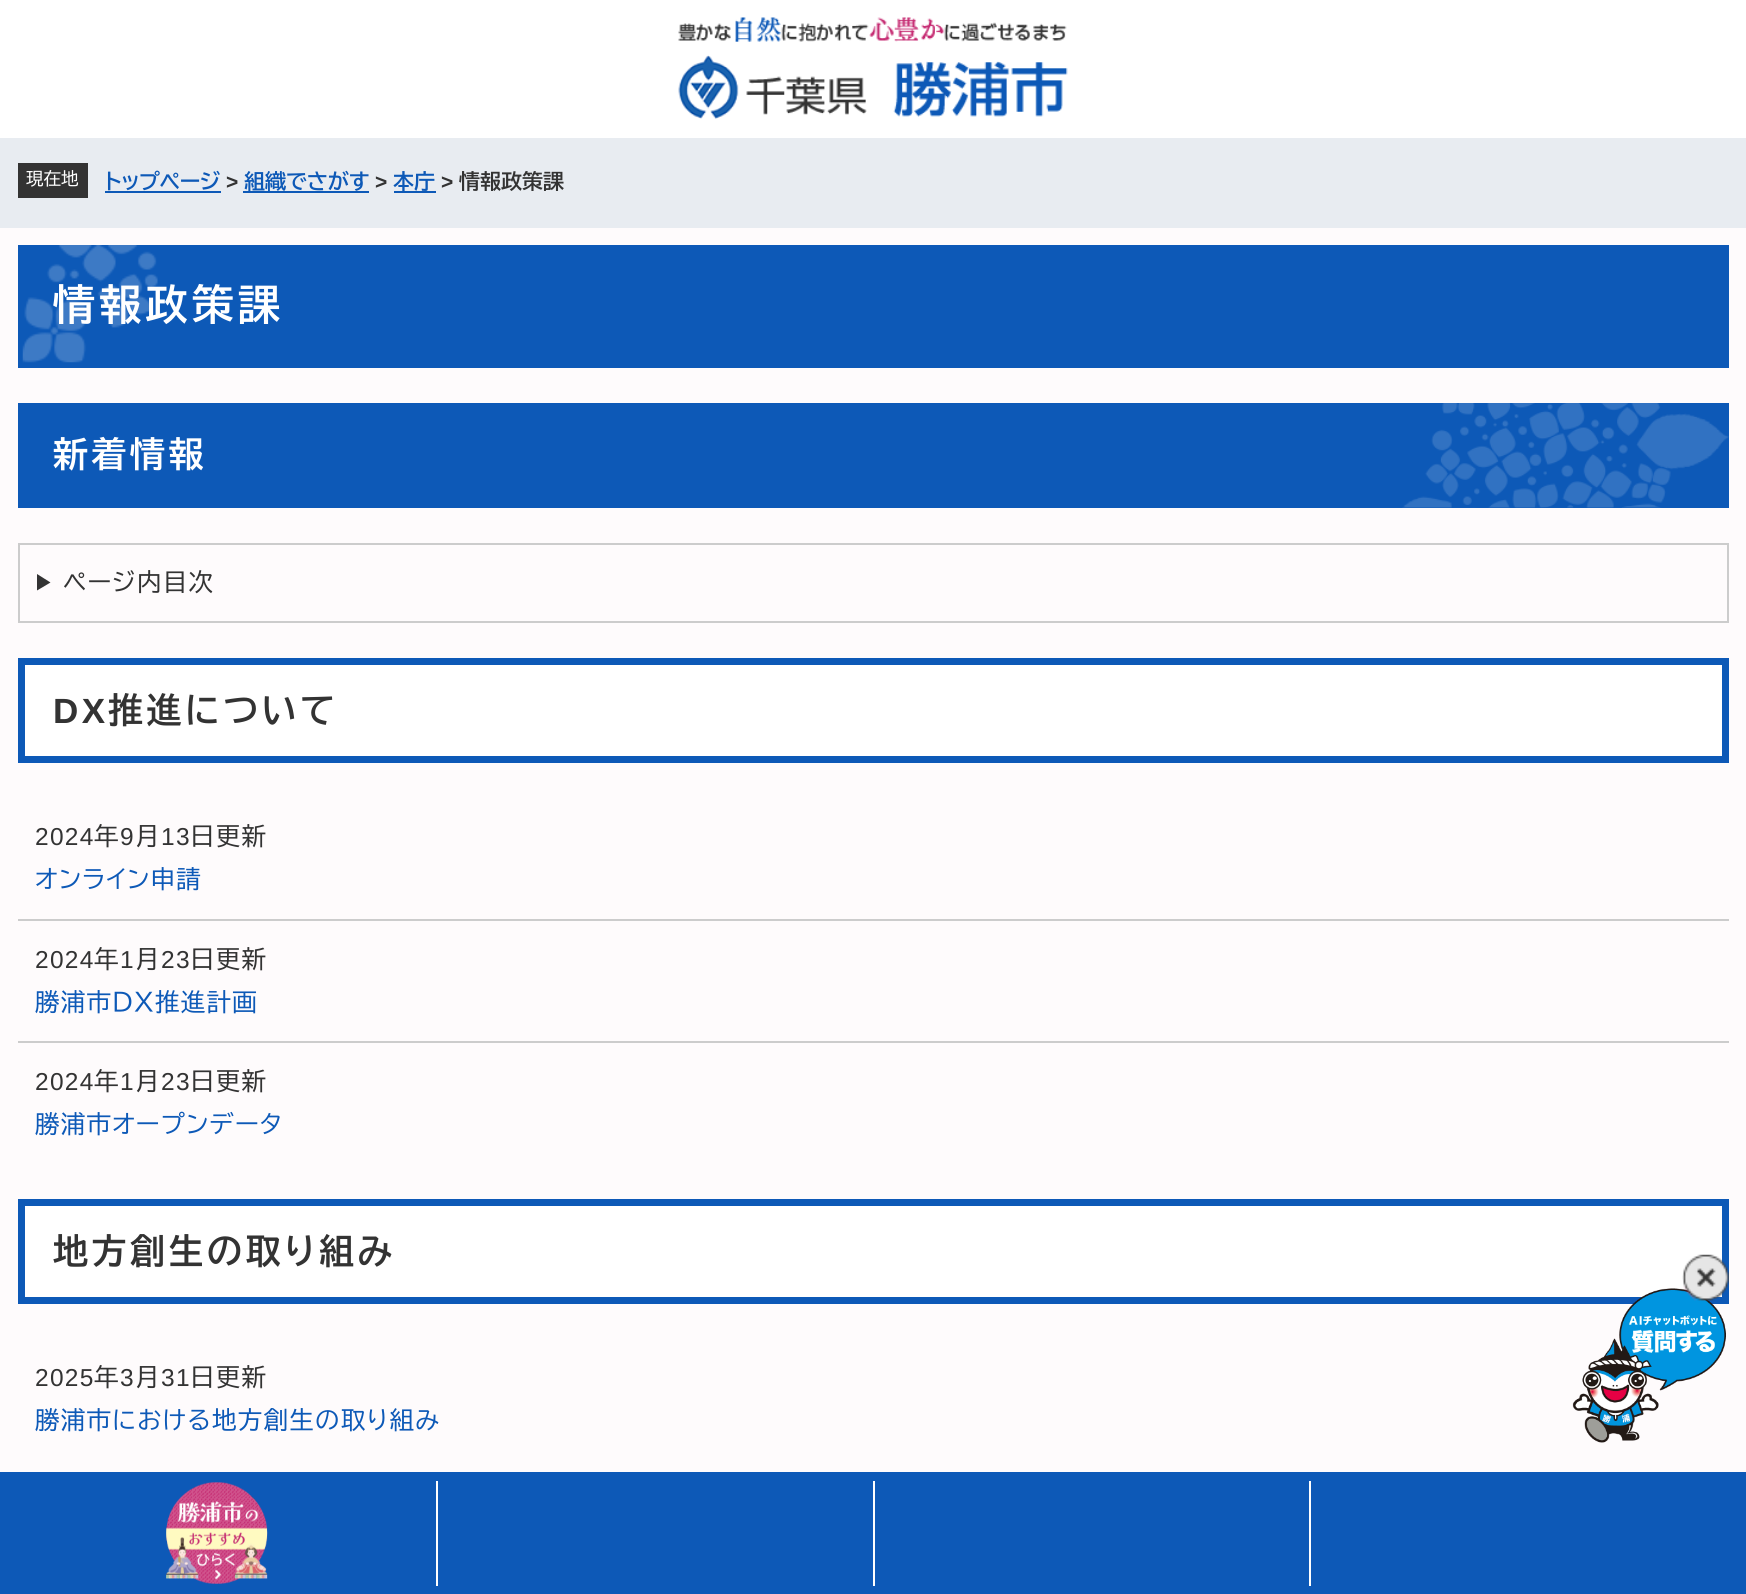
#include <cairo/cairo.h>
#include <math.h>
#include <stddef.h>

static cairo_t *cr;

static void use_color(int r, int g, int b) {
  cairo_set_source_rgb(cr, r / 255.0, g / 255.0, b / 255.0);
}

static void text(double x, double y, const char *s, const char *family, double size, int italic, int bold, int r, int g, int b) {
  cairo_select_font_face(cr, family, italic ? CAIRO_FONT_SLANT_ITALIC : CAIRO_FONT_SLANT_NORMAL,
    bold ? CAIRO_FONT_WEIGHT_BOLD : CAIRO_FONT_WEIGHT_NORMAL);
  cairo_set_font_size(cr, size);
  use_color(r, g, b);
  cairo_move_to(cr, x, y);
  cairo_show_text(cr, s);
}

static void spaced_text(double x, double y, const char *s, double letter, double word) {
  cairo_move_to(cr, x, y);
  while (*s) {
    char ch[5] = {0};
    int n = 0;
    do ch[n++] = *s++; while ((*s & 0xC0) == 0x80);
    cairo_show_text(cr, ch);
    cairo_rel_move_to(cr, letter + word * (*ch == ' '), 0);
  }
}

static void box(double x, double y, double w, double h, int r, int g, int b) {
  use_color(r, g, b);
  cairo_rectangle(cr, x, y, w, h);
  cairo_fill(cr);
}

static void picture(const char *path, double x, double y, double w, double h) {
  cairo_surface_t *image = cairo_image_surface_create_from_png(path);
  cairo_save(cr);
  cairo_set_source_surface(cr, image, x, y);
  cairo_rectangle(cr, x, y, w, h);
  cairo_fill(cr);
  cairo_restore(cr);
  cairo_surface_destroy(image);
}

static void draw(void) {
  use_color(254, 251, 252);
  cairo_paint(cr);
  box(0, 0, 1746, 138, 255, 255, 255);
  picture("img_01.png", 678, 17, 390, 102);
  box(0, 1472, 1746, 122, 13, 89, 183);
  picture("img_02.png", 166, 1482, 102, 102);
  box(436, 1481, 2, 105, 255, 255, 255);
  box(873, 1481, 2, 105, 255, 255, 255);
  box(1309, 1481, 2, 105, 255, 255, 255);
  box(0, 138, 1746, 90, 232, 236, 241);
  box(18, 163, 70, 35, 51, 51, 51);
  box(105, 191, 116, 2, 13, 89, 183);
  box(243, 191, 126, 2, 13, 89, 183);
  box(394, 191, 42, 2, 13, 89, 183);
  box(18, 245, 1711, 123, 13, 89, 183);
  picture("img_03.png", 22, 245, 136, 118);
  box(18, 403, 1711, 105, 13, 89, 183);
  picture("img_04.png", 1402, 403, 327, 105);
  cairo_rectangle(cr, 19, 544, 1709, 78);
  use_color(204, 204, 204);
  cairo_stroke(cr);
  use_color(51, 51, 51);
  cairo_new_path(cr);
  cairo_move_to(cr, 37, 574);
  cairo_line_to(cr, 50.5, 582.5);
  cairo_line_to(cr, 37, 590.5);
  cairo_close_path(cr);
  cairo_fill(cr);
  use_color(255, 255, 255);
  cairo_rectangle(cr, 21.5, 661.5, 1704, 98);
  cairo_fill_preserve(cr);
  use_color(13, 89, 183);
  cairo_set_line_width(cr, 7);
  cairo_stroke(cr);
  box(18, 919, 1711, 2, 204, 204, 204);
  box(18, 1041, 1711, 2, 204, 204, 204);
  use_color(255, 255, 255);
  cairo_rectangle(cr, 21.5, 1202.5, 1704, 98);
  cairo_fill_preserve(cr);
  use_color(13, 89, 183);
  cairo_stroke(cr);
  picture("img_06.png", 1572, 1288, 154, 155);
  picture("img_05.png", 1682, 1254, 47, 47);
  text(26, 185, "現在地", "BIZ UDPGothic", 17.5, 0, 0, 255, 255, 255);
  text(105, 189, "トップページ", "BIZ UDPGothic", 21, 0, 1, 13, 89, 183);
  text(226, 189, ">", "Liberation Sans", 21, 0, 1, 51, 51, 51);
  text(244, 189, "組織でさがす", "BIZ UDPGothic", 21, 0, 1, 13, 89, 183);
  text(375, 189, ">", "Liberation Sans", 21, 0, 1, 51, 51, 51);
  text(393, 189, "本庁", "BIZ UDPGothic", 21, 0, 1, 13, 89, 183);
  text(441, 189, ">", "Liberation Sans", 21, 0, 1, 51, 51, 51);
  text(459, 189, "情報政策課", "BIZ UDPGothic", 21, 0, 1, 51, 51, 51);
  cairo_set_font_size(cr, 42);
  use_color(255, 255, 255);
  spaced_text(53, 320, "情報政策課", 4.25, 0);
  cairo_set_font_size(cr, 35);
  spaced_text(53, 467, "新着情報", 3.5, 0);
  cairo_select_font_face(cr, "BIZ UDPGothic", CAIRO_FONT_SLANT_NORMAL, CAIRO_FONT_WEIGHT_NORMAL);
  cairo_set_font_size(cr, 24.5);
  use_color(51, 51, 51);
  spaced_text(63, 591, "ページ内目次", 1.25, 0);
  cairo_select_font_face(cr, "Liberation Sans", CAIRO_FONT_SLANT_NORMAL, CAIRO_FONT_WEIGHT_BOLD);
  cairo_set_font_size(cr, 35);
  spaced_text(53, 723, "DX", 3.5, 0);
  cairo_select_font_face(cr, "BIZ UDPGothic", CAIRO_FONT_SLANT_NORMAL, CAIRO_FONT_WEIGHT_BOLD);
  spaced_text(108, 723, "推進について", 3.5, 0);
  cairo_select_font_face(cr, "Liberation Sans", CAIRO_FONT_SLANT_NORMAL, CAIRO_FONT_WEIGHT_NORMAL);
  cairo_set_font_size(cr, 24.5);
  spaced_text(35, 845, "2024", 1.25, 0);
  cairo_select_font_face(cr, "BIZ UDPGothic", CAIRO_FONT_SLANT_NORMAL, CAIRO_FONT_WEIGHT_NORMAL);
  spaced_text(94, 845, "年", 1.25, 0);
  cairo_select_font_face(cr, "Liberation Sans", CAIRO_FONT_SLANT_NORMAL, CAIRO_FONT_WEIGHT_NORMAL);
  spaced_text(120, 845, "9", 1.25, 0);
  cairo_select_font_face(cr, "BIZ UDPGothic", CAIRO_FONT_SLANT_NORMAL, CAIRO_FONT_WEIGHT_NORMAL);
  spaced_text(135, 845, "月", 1.25, 0);
  cairo_select_font_face(cr, "Liberation Sans", CAIRO_FONT_SLANT_NORMAL, CAIRO_FONT_WEIGHT_NORMAL);
  spaced_text(161, 845, "13", 1.25, 0);
  cairo_select_font_face(cr, "BIZ UDPGothic", CAIRO_FONT_SLANT_NORMAL, CAIRO_FONT_WEIGHT_NORMAL);
  spaced_text(190, 845, "日更新", 1.25, 0);
  use_color(13, 89, 183);
  spaced_text(35, 888, "オンライン申請", 1.25, 0);
  cairo_select_font_face(cr, "Liberation Sans", CAIRO_FONT_SLANT_NORMAL, CAIRO_FONT_WEIGHT_NORMAL);
  use_color(51, 51, 51);
  spaced_text(35, 968, "2024", 1.25, 0);
  cairo_select_font_face(cr, "BIZ UDPGothic", CAIRO_FONT_SLANT_NORMAL, CAIRO_FONT_WEIGHT_NORMAL);
  spaced_text(94, 968, "年", 1.25, 0);
  cairo_select_font_face(cr, "Liberation Sans", CAIRO_FONT_SLANT_NORMAL, CAIRO_FONT_WEIGHT_NORMAL);
  spaced_text(120, 968, "1", 1.25, 0);
  cairo_select_font_face(cr, "BIZ UDPGothic", CAIRO_FONT_SLANT_NORMAL, CAIRO_FONT_WEIGHT_NORMAL);
  spaced_text(135, 968, "月", 1.25, 0);
  cairo_select_font_face(cr, "Liberation Sans", CAIRO_FONT_SLANT_NORMAL, CAIRO_FONT_WEIGHT_NORMAL);
  spaced_text(161, 968, "23", 1.25, 0);
  cairo_select_font_face(cr, "BIZ UDPGothic", CAIRO_FONT_SLANT_NORMAL, CAIRO_FONT_WEIGHT_NORMAL);
  spaced_text(190, 968, "日更新", 1.25, 0);
  use_color(13, 89, 183);
  spaced_text(35, 1011, "勝浦市ＤＸ推進計画", 1.25, 0);
  cairo_select_font_face(cr, "Liberation Sans", CAIRO_FONT_SLANT_NORMAL, CAIRO_FONT_WEIGHT_NORMAL);
  use_color(51, 51, 51);
  spaced_text(35, 1090, "2024", 1.25, 0);
  cairo_select_font_face(cr, "BIZ UDPGothic", CAIRO_FONT_SLANT_NORMAL, CAIRO_FONT_WEIGHT_NORMAL);
  spaced_text(94, 1090, "年", 1.25, 0);
  cairo_select_font_face(cr, "Liberation Sans", CAIRO_FONT_SLANT_NORMAL, CAIRO_FONT_WEIGHT_NORMAL);
  spaced_text(120, 1090, "1", 1.25, 0);
  cairo_select_font_face(cr, "BIZ UDPGothic", CAIRO_FONT_SLANT_NORMAL, CAIRO_FONT_WEIGHT_NORMAL);
  spaced_text(135, 1090, "月", 1.25, 0);
  cairo_select_font_face(cr, "Liberation Sans", CAIRO_FONT_SLANT_NORMAL, CAIRO_FONT_WEIGHT_NORMAL);
  spaced_text(161, 1090, "23", 1.25, 0);
  cairo_select_font_face(cr, "BIZ UDPGothic", CAIRO_FONT_SLANT_NORMAL, CAIRO_FONT_WEIGHT_NORMAL);
  spaced_text(190, 1090, "日更新", 1.25, 0);
  use_color(13, 89, 183);
  spaced_text(35, 1133, "勝浦市オープンデータ", 1.25, 0);
  cairo_select_font_face(cr, "BIZ UDPGothic", CAIRO_FONT_SLANT_NORMAL, CAIRO_FONT_WEIGHT_BOLD);
  cairo_set_font_size(cr, 35);
  use_color(51, 51, 51);
  spaced_text(53, 1264, "地方創生の取り組み", 3.5, 0);
  cairo_select_font_face(cr, "Liberation Sans", CAIRO_FONT_SLANT_NORMAL, CAIRO_FONT_WEIGHT_NORMAL);
  cairo_set_font_size(cr, 24.5);
  spaced_text(35, 1386, "2025", 1.25, 0);
  cairo_select_font_face(cr, "BIZ UDPGothic", CAIRO_FONT_SLANT_NORMAL, CAIRO_FONT_WEIGHT_NORMAL);
  spaced_text(94, 1386, "年", 1.25, 0);
  cairo_select_font_face(cr, "Liberation Sans", CAIRO_FONT_SLANT_NORMAL, CAIRO_FONT_WEIGHT_NORMAL);
  spaced_text(120, 1386, "3", 1.25, 0);
  cairo_select_font_face(cr, "BIZ UDPGothic", CAIRO_FONT_SLANT_NORMAL, CAIRO_FONT_WEIGHT_NORMAL);
  spaced_text(135, 1386, "月", 1.25, 0);
  cairo_select_font_face(cr, "Liberation Sans", CAIRO_FONT_SLANT_NORMAL, CAIRO_FONT_WEIGHT_NORMAL);
  spaced_text(161, 1386, "31", 1.25, 0);
  cairo_select_font_face(cr, "BIZ UDPGothic", CAIRO_FONT_SLANT_NORMAL, CAIRO_FONT_WEIGHT_NORMAL);
  spaced_text(190, 1386, "日更新", 1.25, 0);
  use_color(13, 89, 183);
  spaced_text(35, 1429, "勝浦市における地方創生の取り組み", 1.25, 0);
}

int main(void) {
  cairo_surface_t *surface = cairo_image_surface_create(CAIRO_FORMAT_RGB24, 1746, 1594);
  cr = cairo_create(surface);
  cairo_font_options_t *options = cairo_font_options_create();
  cairo_font_options_set_hint_metrics(options, CAIRO_HINT_METRICS_OFF);
  cairo_font_options_set_hint_style(options, CAIRO_HINT_STYLE_NONE);
  cairo_set_font_options(cr, options);
  cairo_set_miter_limit(cr, 4);
  draw();
  cairo_surface_write_to_png(surface, "out.png");
  cairo_font_options_destroy(options);
  cairo_destroy(cr);
  cairo_surface_destroy(surface);
  return 0;
}
